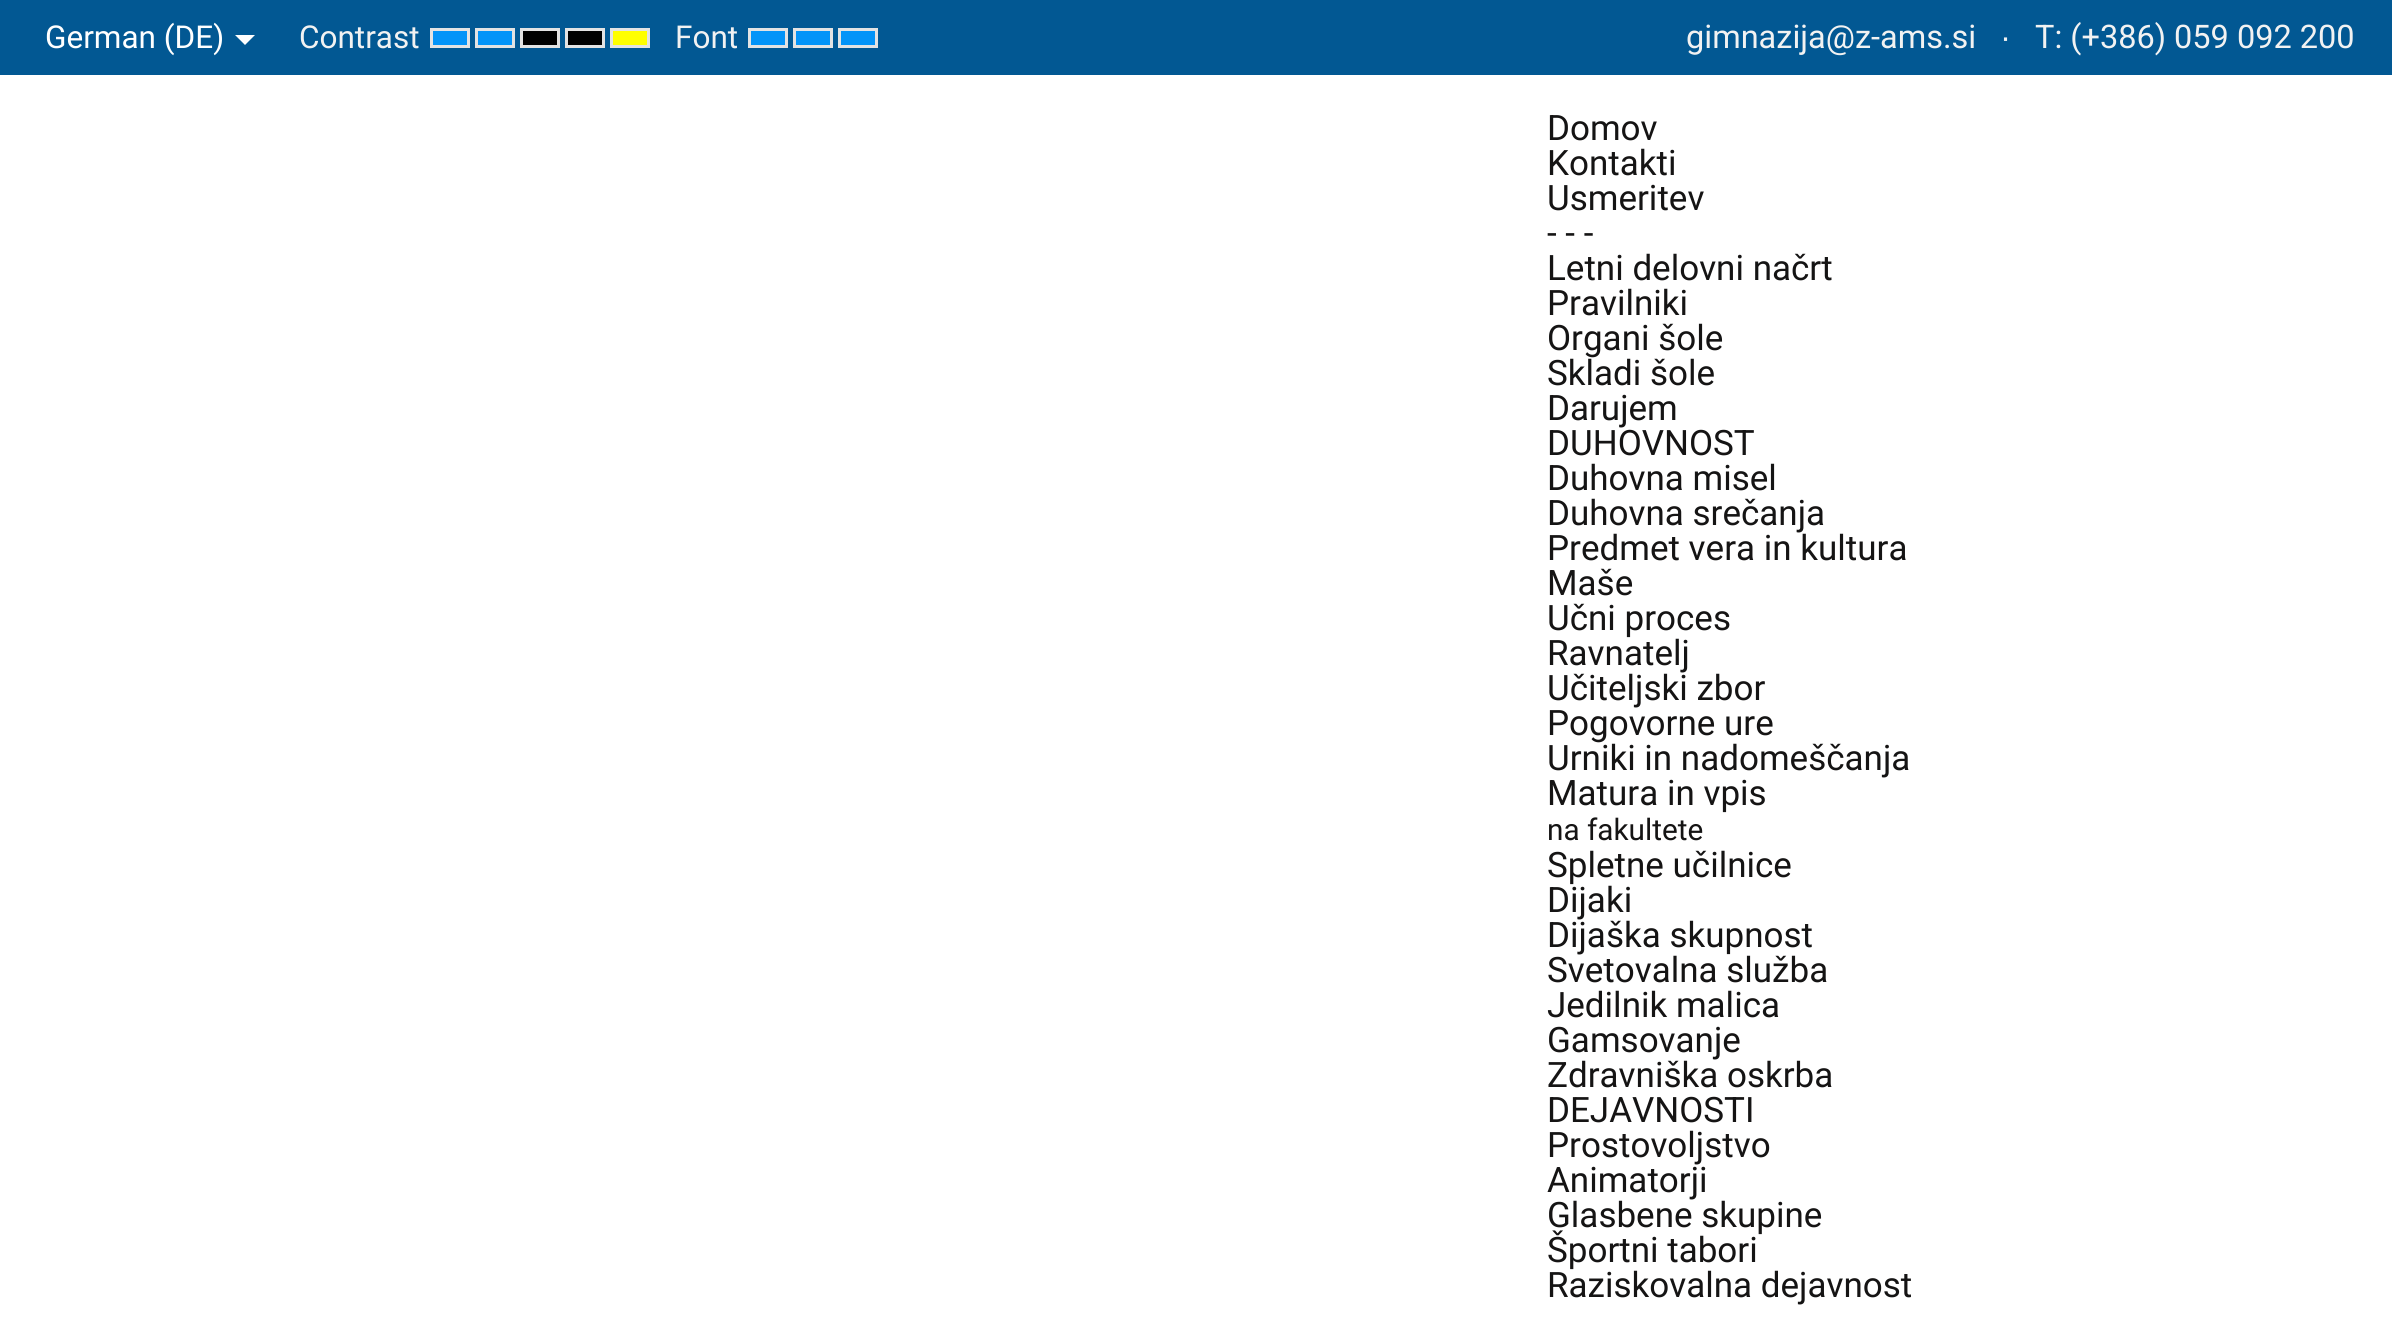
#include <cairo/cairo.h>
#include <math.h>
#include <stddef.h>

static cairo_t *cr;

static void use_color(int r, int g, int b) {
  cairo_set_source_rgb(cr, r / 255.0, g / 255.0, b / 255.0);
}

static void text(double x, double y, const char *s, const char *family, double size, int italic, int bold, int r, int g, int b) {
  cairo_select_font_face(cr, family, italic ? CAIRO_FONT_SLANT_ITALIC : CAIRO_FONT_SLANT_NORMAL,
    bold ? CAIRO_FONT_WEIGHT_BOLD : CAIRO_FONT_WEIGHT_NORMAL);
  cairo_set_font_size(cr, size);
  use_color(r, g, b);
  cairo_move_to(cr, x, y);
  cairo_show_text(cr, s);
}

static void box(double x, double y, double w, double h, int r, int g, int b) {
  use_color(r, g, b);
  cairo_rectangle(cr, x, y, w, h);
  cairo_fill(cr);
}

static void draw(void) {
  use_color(2, 88, 147);
  cairo_paint(cr);
  use_color(255, 255, 255);
  cairo_new_path(cr);
  cairo_move_to(cr, 235, 35);
  cairo_line_to(cr, 255, 35);
  cairo_line_to(cr, 245, 45);
  cairo_close_path(cr);
  cairo_fill(cr);
  use_color(3, 148, 248);
  cairo_rectangle(cr, 431.5, 29.5, 37, 17);
  cairo_fill_preserve(cr);
  use_color(227, 227, 227);
  cairo_set_line_width(cr, 3);
  cairo_stroke(cr);
  use_color(3, 148, 248);
  cairo_rectangle(cr, 476.5, 29.5, 37, 17);
  cairo_fill_preserve(cr);
  use_color(227, 227, 227);
  cairo_stroke(cr);
  use_color(0, 0, 0);
  cairo_rectangle(cr, 521.5, 29.5, 37, 17);
  cairo_fill_preserve(cr);
  use_color(227, 227, 227);
  cairo_stroke(cr);
  use_color(0, 0, 0);
  cairo_rectangle(cr, 566.5, 29.5, 37, 17);
  cairo_fill_preserve(cr);
  use_color(227, 227, 227);
  cairo_stroke(cr);
  use_color(255, 255, 0);
  cairo_rectangle(cr, 611.5, 29.5, 37, 17);
  cairo_fill_preserve(cr);
  use_color(227, 227, 227);
  cairo_stroke(cr);
  use_color(3, 148, 248);
  cairo_rectangle(cr, 749.5, 29.5, 37, 17);
  cairo_fill_preserve(cr);
  use_color(227, 227, 227);
  cairo_stroke(cr);
  use_color(3, 148, 248);
  cairo_rectangle(cr, 794.5, 29.5, 37, 17);
  cairo_fill_preserve(cr);
  use_color(227, 227, 227);
  cairo_stroke(cr);
  use_color(3, 148, 248);
  cairo_rectangle(cr, 839.5, 29.5, 37, 17);
  cairo_fill_preserve(cr);
  use_color(227, 227, 227);
  cairo_stroke(cr);
  box(0, 75, 2392, 1245, 255, 255, 255);
  text(45, 48, "German (DE)", "Roboto", 31.5, 0, 0, 255, 255, 255);
  text(299, 48, "Contrast", "Roboto", 31.5, 0, 0, 242, 242, 242);
  text(675, 48, "Font", "Roboto", 31.5, 0, 0, 242, 242, 242);
  text(1686, 48, "gimnazija@z-ams.si", "Roboto", 32.5, 0, 0, 242, 242, 242);
  text(2001, 48, "∙", "Liberation Sans", 32.5, 0, 0, 242, 242, 242);
  text(2035, 48, "T: (+386) 059 092 200", "Roboto", 32.5, 0, 0, 242, 242, 242);
  text(1547, 140, "Domov", "Roboto", 35, 0, 0, 21, 20, 20);
  text(1547, 175, "Kontakti", "Roboto", 35, 0, 0, 21, 20, 20);
  text(1547, 210, "Usmeritev", "Roboto", 35, 0, 0, 21, 20, 20);
  text(1547, 245, "- - -", "Roboto", 35, 0, 0, 21, 20, 20);
  text(1547, 280, "Letni delovni načrt", "Roboto", 35, 0, 0, 21, 20, 20);
  text(1547, 315, "Pravilniki", "Roboto", 35, 0, 0, 21, 20, 20);
  text(1547, 350, "Organi šole", "Roboto", 35, 0, 0, 21, 20, 20);
  text(1547, 385, "Skladi šole", "Roboto", 35, 0, 0, 21, 20, 20);
  text(1547, 420, "Darujem", "Roboto", 35, 0, 0, 21, 20, 20);
  text(1547, 455, "DUHOVNOST", "Roboto", 35, 0, 0, 21, 20, 20);
  text(1547, 490, "Duhovna misel", "Roboto", 35, 0, 0, 21, 20, 20);
  text(1547, 525, "Duhovna srečanja", "Roboto", 35, 0, 0, 21, 20, 20);
  text(1547, 560, "Predmet vera in kultura", "Roboto", 35, 0, 0, 21, 20, 20);
  text(1547, 595, "Maše", "Roboto", 35, 0, 0, 21, 20, 20);
  text(1547, 630, "Učni proces", "Roboto", 35, 0, 0, 21, 20, 20);
  text(1547, 665, "Ravnatelj", "Roboto", 35, 0, 0, 21, 20, 20);
  text(1547, 700, "Učiteljski zbor", "Roboto", 35, 0, 0, 21, 20, 20);
  text(1547, 735, "Pogovorne ure", "Roboto", 35, 0, 0, 21, 20, 20);
  text(1547, 770, "Urniki in nadomeščanja", "Roboto", 35, 0, 0, 21, 20, 20);
  text(1547, 805, "Matura in vpis", "Roboto", 35, 0, 0, 21, 20, 20);
  text(1547, 840, "na fakultete", "Roboto", 29.75, 0, 0, 21, 20, 20);
  text(1547, 877, "Spletne učilnice", "Roboto", 35, 0, 0, 21, 20, 20);
  text(1547, 912, "Dijaki", "Roboto", 35, 0, 0, 21, 20, 20);
  text(1547, 947, "Dijaška skupnost", "Roboto", 35, 0, 0, 21, 20, 20);
  text(1547, 982, "Svetovalna služba", "Roboto", 35, 0, 0, 21, 20, 20);
  text(1547, 1017, "Jedilnik malica", "Roboto", 35, 0, 0, 21, 20, 20);
  text(1547, 1052, "Gamsovanje", "Roboto", 35, 0, 0, 21, 20, 20);
  text(1547, 1087, "Zdravniška oskrba", "Roboto", 35, 0, 0, 21, 20, 20);
  text(1547, 1122, "DEJAVNOSTI", "Roboto", 35, 0, 0, 21, 20, 20);
  text(1547, 1157, "Prostovoljstvo", "Roboto", 35, 0, 0, 21, 20, 20);
  text(1547, 1192, "Animatorji", "Roboto", 35, 0, 0, 21, 20, 20);
  text(1547, 1227, "Glasbene skupine", "Roboto", 35, 0, 0, 21, 20, 20);
  text(1547, 1262, "Športni tabori", "Roboto", 35, 0, 0, 21, 20, 20);
  text(1547, 1297, "Raziskovalna dejavnost", "Roboto", 35, 0, 0, 21, 20, 20);
}

int main(void) {
  cairo_surface_t *surface = cairo_image_surface_create(CAIRO_FORMAT_RGB24, 2392, 1320);
  cr = cairo_create(surface);
  cairo_font_options_t *options = cairo_font_options_create();
  cairo_font_options_set_hint_metrics(options, CAIRO_HINT_METRICS_OFF);
  cairo_font_options_set_hint_style(options, CAIRO_HINT_STYLE_NONE);
  cairo_set_font_options(cr, options);
  cairo_set_miter_limit(cr, 4);
  draw();
  cairo_surface_write_to_png(surface, "out.png");
  cairo_font_options_destroy(options);
  cairo_destroy(cr);
  cairo_surface_destroy(surface);
  return 0;
}
